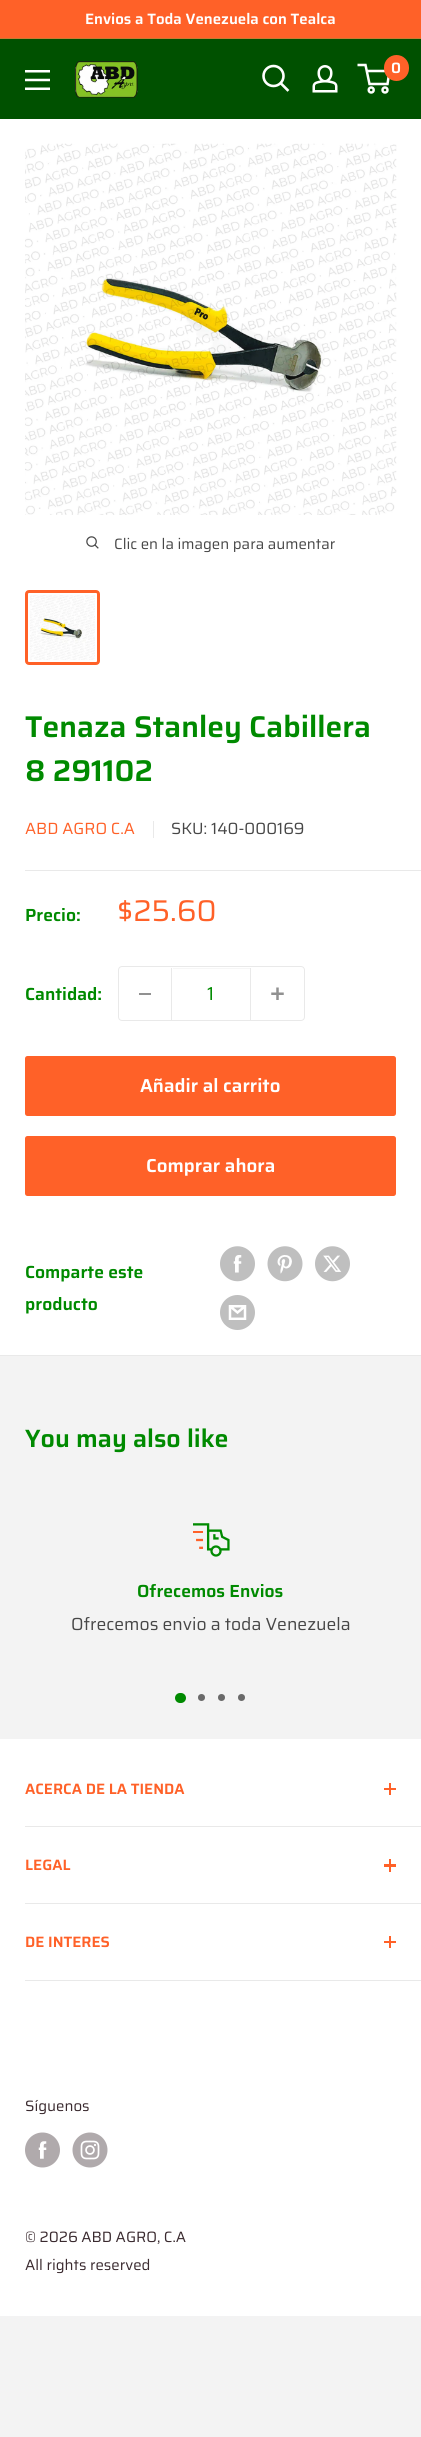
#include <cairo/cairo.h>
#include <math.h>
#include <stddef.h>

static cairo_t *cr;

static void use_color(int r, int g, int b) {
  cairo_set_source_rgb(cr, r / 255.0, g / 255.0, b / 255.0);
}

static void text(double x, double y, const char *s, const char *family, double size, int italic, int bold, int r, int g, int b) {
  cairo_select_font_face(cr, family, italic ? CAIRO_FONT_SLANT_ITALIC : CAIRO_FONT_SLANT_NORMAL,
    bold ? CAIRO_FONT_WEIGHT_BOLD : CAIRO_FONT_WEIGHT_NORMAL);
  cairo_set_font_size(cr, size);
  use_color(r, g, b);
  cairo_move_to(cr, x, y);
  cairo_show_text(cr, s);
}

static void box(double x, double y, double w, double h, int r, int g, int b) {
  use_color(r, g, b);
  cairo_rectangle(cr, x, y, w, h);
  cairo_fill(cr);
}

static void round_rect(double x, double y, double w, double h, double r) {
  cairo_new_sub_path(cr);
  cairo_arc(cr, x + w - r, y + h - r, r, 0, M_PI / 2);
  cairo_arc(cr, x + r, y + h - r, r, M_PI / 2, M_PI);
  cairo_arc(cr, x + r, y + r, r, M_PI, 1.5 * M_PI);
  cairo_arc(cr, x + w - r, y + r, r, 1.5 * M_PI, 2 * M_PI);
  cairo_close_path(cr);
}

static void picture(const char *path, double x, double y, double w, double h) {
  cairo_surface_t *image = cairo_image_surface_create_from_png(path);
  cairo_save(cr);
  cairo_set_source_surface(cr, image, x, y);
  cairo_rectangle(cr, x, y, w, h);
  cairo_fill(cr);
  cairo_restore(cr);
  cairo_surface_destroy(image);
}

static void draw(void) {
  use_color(243, 243, 243);
  cairo_paint(cr);
  box(0, 0, 421, 38, 255, 97, 40);
  box(0, 38, 421, 1, 200, 122, 50);
  box(0, 39, 421, 80, 0, 81, 0);
  picture("img_01.png", 75, 61, 63, 37);
  cairo_new_path(cr);
  cairo_move_to(cr, 287.5, 90);
  cairo_line_to(cr, 281, 83.5);
  use_color(255, 255, 255);
  cairo_set_line_width(cr, 2.6);
  cairo_set_line_cap(cr, CAIRO_LINE_CAP_SQUARE);
  cairo_stroke(cr);
  cairo_arc(cr, 273.5, 76, 10, 0, 2 * M_PI);
  cairo_set_line_cap(cr, CAIRO_LINE_CAP_BUTT);
  cairo_stroke(cr);
  picture("img_02.png", 312, 65, 26, 28);
  cairo_arc(cr, 371.2, 90, 2.5, 0, 2 * M_PI);
  cairo_set_line_width(cr, 2.5);
  cairo_stroke(cr);
  cairo_arc(cr, 385, 90, 2.5, 0, 2 * M_PI);
  cairo_stroke(cr);
  cairo_new_path(cr);
  cairo_move_to(cr, 366.5, 71);
  cairo_line_to(cr, 389.5, 71);
  cairo_line_to(cr, 387.5, 84);
  cairo_line_to(cr, 369.5, 84);
  cairo_line_to(cr, 365.5, 65);
  cairo_line_to(cr, 357.5, 65);
  cairo_stroke(cr);
  use_color(255, 97, 40);
  round_rect(384, 55, 25, 26, 12.5);
  cairo_fill(cr);
  picture("img_03.png", 25, 70, 25, 20);
  box(0, 119, 421, 1236, 255, 255, 255);
  picture("img_04.png", 25, 143, 372, 372);
  picture("img_05.png", 86, 536, 13, 13);
  round_rect(26.5, 591.5, 72, 72, 2.5);
  use_color(255, 97, 40);
  cairo_set_line_width(cr, 3);
  cairo_stroke(cr);
  picture("img_06.png", 30, 595, 65, 65);
  box(0, 1355, 421, 1, 233, 233, 233);
  box(153, 821, 1, 17, 233, 233, 233);
  box(25, 870, 396, 1, 233, 233, 233);
  round_rect(118.5, 966.5, 186, 54, 3.5);
  cairo_set_line_width(cr, 1);
  cairo_stroke(cr);
  box(139, 993, 12, 2, 145, 145, 145);
  box(173, 968, 77, 1, 246, 246, 246);
  box(250, 968, 1, 52, 233, 233, 233);
  box(171, 968, 1, 52, 233, 233, 233);
  picture("img_07.png", 271, 987, 13, 13);
  use_color(255, 97, 40);
  round_rect(25, 1056, 371, 60, 2.5);
  cairo_fill(cr);
  round_rect(25, 1136, 371, 60, 2.5);
  cairo_fill(cr);
  picture("img_08.png", 220, 1246, 35, 36);
  picture("img_09.png", 267, 1246, 36, 36);
  picture("img_10.png", 315, 1246, 35, 36);
  picture("img_11.png", 220, 1295, 35, 35);
  picture("img_12.png", 193, 1523, 37, 34);
  use_color(0, 138, 0);
  round_rect(175, 1693, 11, 10, 5);
  cairo_fill(cr);
  use_color(105, 105, 105);
  cairo_arc(cr, 201.5, 1697.5, 3.5, 0, 2 * M_PI);
  cairo_fill(cr);
  cairo_arc(cr, 221.5, 1697.5, 3.5, 0, 2 * M_PI);
  cairo_fill(cr);
  cairo_arc(cr, 241.5, 1697.5, 3.5, 0, 2 * M_PI);
  cairo_fill(cr);
  box(0, 1739, 421, 577, 255, 255, 255);
  box(25, 1826, 396, 1, 233, 233, 233);
  box(389, 1783, 2, 12, 255, 97, 40);
  box(384, 1788, 12, 2, 255, 97, 40);
  box(25, 1903, 396, 1, 233, 233, 233);
  box(389, 1859, 2, 13, 255, 97, 40);
  box(384, 1864, 12, 3, 255, 97, 40);
  box(25, 1980, 396, 1, 233, 233, 233);
  box(389, 1936, 2, 12, 255, 97, 40);
  box(384, 1941, 12, 2, 255, 97, 40);
  picture("img_13.png", 25, 2132, 35, 36);
  picture("img_14.png", 72, 2132, 36, 36);
  text(85, 24, "Envios a Toda Venezuela con Tealca", "Saira SemiBold", 15, 0, 0, 255, 255, 255);
  text(391, 73, "0", "Saira SemiBold", 15, 0, 0, 255, 255, 255);
  text(114, 549, "Clic en la imagen para aumentar", "Saira", 15, 0, 0, 71, 71, 71);
  text(25, 737, "Tenaza Stanley Cabillera", "Saira SemiBold", 30, 0, 0, 0, 138, 0);
  text(25, 781, "8 291102", "Saira SemiBold", 30, 0, 0, 0, 138, 0);
  text(25, 834, "ABD AGRO C.A", "Saira", 16.25, 0, 0, 255, 97, 40);
  text(171, 834, "SKU: 140-000169", "Saira", 16.25, 0, 0, 71, 71, 71);
  text(25, 921, "Precio:", "Saira SemiBold", 17.5, 0, 0, 0, 138, 0);
  text(117, 921, "$25.60", "Saira", 30, 0, 0, 255, 97, 40);
  text(25, 1000, "Cantidad:", "Saira SemiBold", 17.5, 0, 0, 0, 138, 0);
  text(207, 1000, "1", "Saira", 18.75, 0, 0, 0, 138, 0);
  text(140, 1092, "Añadir al carrito", "Saira SemiBold", 18.75, 0, 0, 255, 255, 255);
  text(146, 1172, "Comprar ahora", "Saira SemiBold", 18.75, 0, 0, 255, 255, 255);
  text(25, 1278, "Comparte este", "Saira SemiBold", 17.5, 0, 0, 0, 138, 0);
  text(25, 1310, "producto", "Saira SemiBold", 17.5, 0, 0, 0, 138, 0);
  text(25, 1447, "You may also like", "Saira SemiBold", 25, 0, 0, 0, 138, 0);
  text(137, 1597, "Ofrecemos Envios", "Saira SemiBold", 17.5, 0, 0, 0, 138, 0);
  text(71, 1630, "Ofrecemos envio a toda Venezuela", "Saira", 17.5, 0, 0, 71, 71, 71);
  text(25, 1794, "ACERCA DE LA TIENDA", "Saira SemiBold", 15, 0, 0, 255, 97, 40);
  text(25, 1870, "LEGAL", "Saira SemiBold", 15, 0, 0, 255, 97, 40);
  text(25, 1947, "DE INTERES", "Saira SemiBold", 15, 0, 0, 255, 97, 40);
  text(25, 2111, "Síguenos", "Saira", 15, 0, 0, 58, 42, 47);
  text(25, 2242, "© 2026 ABD AGRO, C.A", "Saira", 15, 0, 0, 58, 42, 47);
  text(25, 2270, "All rights reserved", "Saira", 15, 0, 0, 58, 42, 47);
}

int main(void) {
  cairo_surface_t *surface = cairo_image_surface_create(CAIRO_FORMAT_RGB24, 421, 2437);
  cr = cairo_create(surface);
  cairo_font_options_t *options = cairo_font_options_create();
  cairo_font_options_set_hint_metrics(options, CAIRO_HINT_METRICS_OFF);
  cairo_font_options_set_hint_style(options, CAIRO_HINT_STYLE_NONE);
  cairo_set_font_options(cr, options);
  cairo_set_miter_limit(cr, 4);
  draw();
  cairo_surface_write_to_png(surface, "out.png");
  cairo_font_options_destroy(options);
  cairo_destroy(cr);
  cairo_surface_destroy(surface);
  return 0;
}
